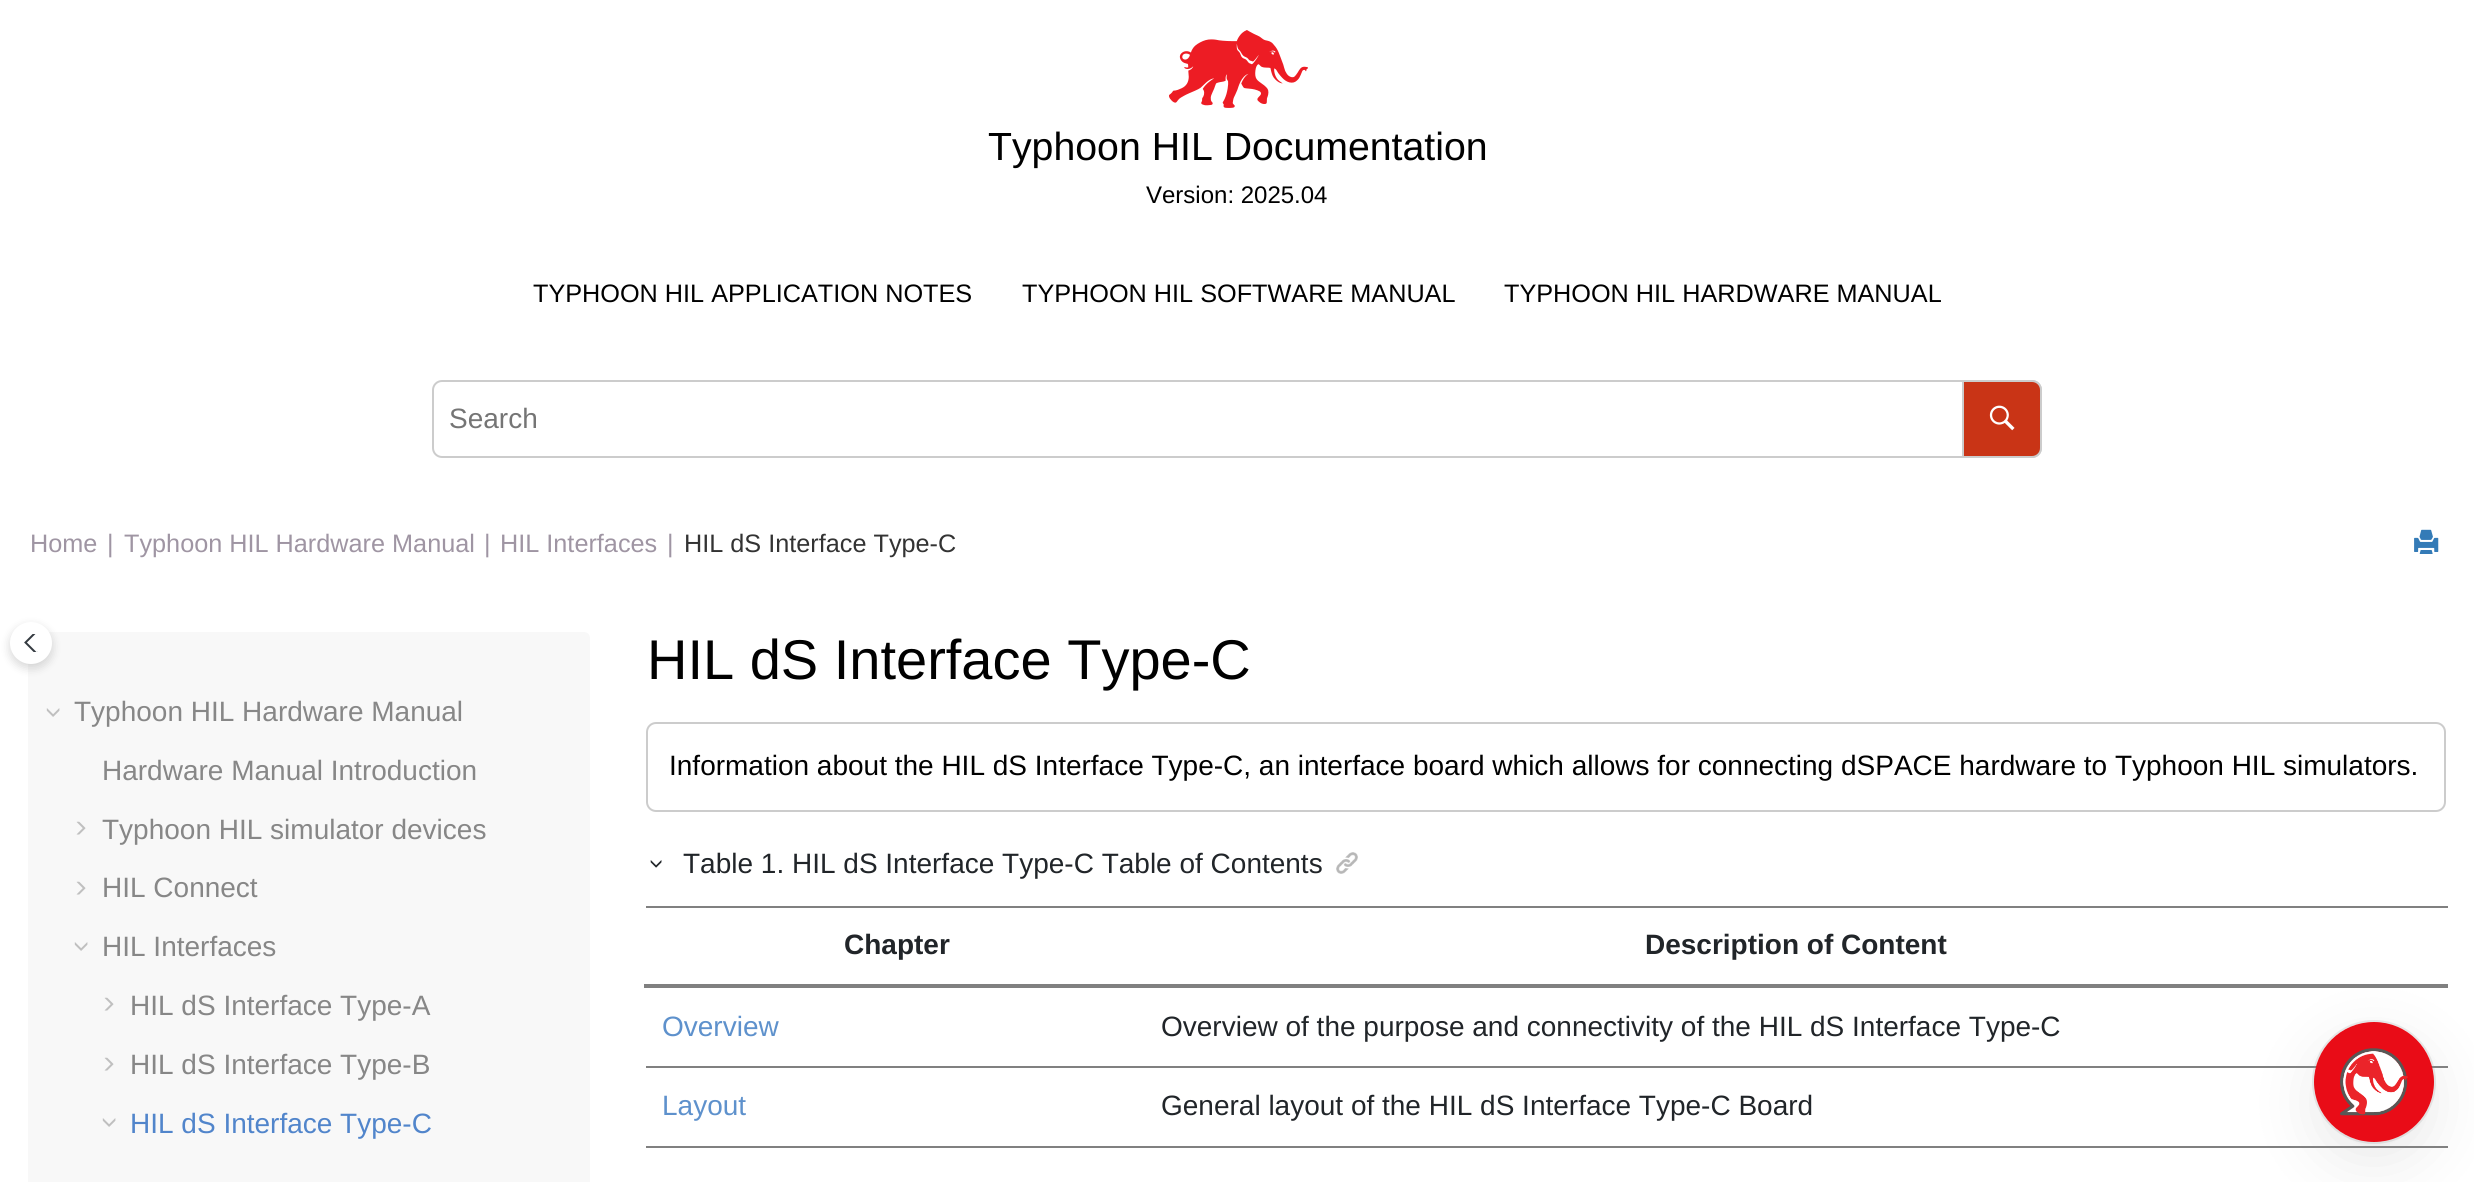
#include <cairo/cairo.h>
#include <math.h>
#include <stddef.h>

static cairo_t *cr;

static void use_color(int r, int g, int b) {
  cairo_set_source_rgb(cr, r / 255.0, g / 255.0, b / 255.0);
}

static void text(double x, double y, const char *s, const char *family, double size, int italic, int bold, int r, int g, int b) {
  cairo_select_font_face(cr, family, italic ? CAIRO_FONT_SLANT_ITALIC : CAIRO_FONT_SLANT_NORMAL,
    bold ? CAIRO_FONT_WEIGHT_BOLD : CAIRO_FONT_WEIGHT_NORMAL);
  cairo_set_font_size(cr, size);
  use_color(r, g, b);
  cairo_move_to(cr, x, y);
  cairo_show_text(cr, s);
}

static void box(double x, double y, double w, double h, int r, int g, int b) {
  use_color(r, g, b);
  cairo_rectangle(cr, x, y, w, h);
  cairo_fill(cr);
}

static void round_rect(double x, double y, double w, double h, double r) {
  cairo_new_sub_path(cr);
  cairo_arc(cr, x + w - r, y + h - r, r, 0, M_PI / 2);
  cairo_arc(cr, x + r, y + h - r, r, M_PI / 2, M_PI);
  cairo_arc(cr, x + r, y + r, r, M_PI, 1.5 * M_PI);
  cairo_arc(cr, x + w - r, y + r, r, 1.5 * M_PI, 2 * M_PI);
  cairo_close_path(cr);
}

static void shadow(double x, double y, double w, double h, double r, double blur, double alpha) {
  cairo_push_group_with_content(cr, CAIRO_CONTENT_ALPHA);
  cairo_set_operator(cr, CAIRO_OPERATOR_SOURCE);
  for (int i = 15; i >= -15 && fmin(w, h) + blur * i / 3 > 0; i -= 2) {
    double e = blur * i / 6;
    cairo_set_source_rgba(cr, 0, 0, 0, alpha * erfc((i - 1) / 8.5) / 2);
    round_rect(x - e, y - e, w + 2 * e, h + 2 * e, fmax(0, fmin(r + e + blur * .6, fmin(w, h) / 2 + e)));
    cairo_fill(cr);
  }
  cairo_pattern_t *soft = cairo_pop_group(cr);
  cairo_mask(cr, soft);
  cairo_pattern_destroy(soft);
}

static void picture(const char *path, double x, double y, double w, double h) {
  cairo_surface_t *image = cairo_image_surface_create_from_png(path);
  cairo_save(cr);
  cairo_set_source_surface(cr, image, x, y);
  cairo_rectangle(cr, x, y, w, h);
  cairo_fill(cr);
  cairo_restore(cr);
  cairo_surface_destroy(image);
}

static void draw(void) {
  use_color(255, 255, 255);
  cairo_paint(cr);
  picture("img_01.png", 1169, 30, 139, 78);
  round_rect(433, 381, 1608, 76, 9);
  use_color(204, 204, 204);
  cairo_stroke(cr);
  use_color(201, 52, 22);
  cairo_new_path(cr);
  cairo_move_to(cr, 1963, 381);
  cairo_line_to(cr, 2032, 381);
  cairo_curve_to(cr, 2037, 381, 2041, 385, 2041, 390);
  cairo_line_to(cr, 2041, 448);
  cairo_curve_to(cr, 2041, 453, 2037, 457, 2032, 457);
  cairo_line_to(cr, 1963, 457);
  cairo_close_path(cr);
  cairo_fill_preserve(cr);
  use_color(204, 204, 204);
  cairo_stroke(cr);
  picture("img_02.png", 1989, 405, 26, 26);
  picture("img_03.png", 2414, 529, 25, 25);
  use_color(248, 248, 248);
  round_rect(28, 632, 562, 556, 6);
  cairo_fill(cr);
  picture("img_04.png", 46, 708, 14, 9);
  picture("img_05.png", 76, 821, 10, 14);
  picture("img_05.png", 76, 881, 10, 14);
  picture("img_04.png", 74, 942, 14, 9);
  picture("img_05.png", 104, 997, 10, 14);
  picture("img_05.png", 104, 1057, 10, 14);
  picture("img_04.png", 102, 1118, 14, 9);
  use_color(0, 0, 0);
  shadow(10, 626, 42, 42, 21, 5, 0.16);
  use_color(255, 255, 255);
  cairo_arc(cr, 31, 643, 21, 0, 2 * M_PI);
  cairo_fill(cr);
  cairo_save(cr);
  cairo_rectangle(cr, 24, 634, 14, 18);
  cairo_clip(cr);
  cairo_new_path(cr);
  cairo_move_to(cr, 37, 631);
  cairo_line_to(cr, 48.5, 642.5);
  cairo_line_to(cr, 37, 654);
  cairo_line_to(cr, 25.5, 642.5);
  cairo_close_path(cr);
  use_color(52, 58, 64);
  cairo_stroke(cr);
  cairo_restore(cr);
  round_rect(647, 723, 1798, 88, 9);
  use_color(204, 204, 204);
  cairo_stroke(cr);
  picture("img_06.png", 650, 860, 12, 8);
  picture("img_07.png", 1336, 852, 22, 22);
  box(646, 906, 1802, 2, 128, 128, 128);
  box(644, 984, 1804, 4, 128, 128, 128);
  box(646, 1066, 1802, 2, 128, 128, 128);
  box(646, 1146, 1802, 2, 128, 128, 128);
  cairo_arc(cr, 2374, 1082, 61, 0, 2 * M_PI);
  cairo_set_source_rgba(cr, 0.588, 0.588, 0.588, 0.2);
  cairo_stroke(cr);
  use_color(150, 150, 150);
  shadow(2314, 1042, 120, 120, 60, 30, 0.2);
  use_color(233, 12, 23);
  cairo_arc(cr, 2374, 1082, 60, 0, 2 * M_PI);
  cairo_fill(cr);
  picture("img_08.png", 2340, 1048, 68, 68);
  text(988, 160, "Typhoon HIL Documentation", "Liberation Sans", 39.25, 0, 0, 0, 0, 0);
  text(1146, 203, "Version: 2025.04", "Liberation Sans", 24, 0, 0, 0, 0, 0);
  text(533, 302, "TYPHOON HIL APPLICATION NOTES", "Liberation Sans", 25.25, 0, 0, 0, 0, 0);
  text(1022, 302, "TYPHOON HIL SOFTWARE MANUAL", "Liberation Sans", 25.25, 0, 0, 0, 0, 0);
  text(1504, 302, "TYPHOON HIL HARDWARE MANUAL", "Liberation Sans", 25.25, 0, 0, 0, 0, 0);
  text(449, 428, "Search", "Liberation Sans", 28, 0, 0, 117, 117, 117);
  text(30, 552, "Home", "Liberation Sans", 25.25, 0, 0, 159, 149, 163);
  text(107, 552, "|", "Liberation Sans", 25.25, 0, 0, 159, 149, 163);
  text(124, 552, "Typhoon HIL Hardware Manual", "Liberation Sans", 25.25, 0, 0, 159, 149, 163);
  text(484, 552, "|", "Liberation Sans", 25.25, 0, 0, 159, 149, 163);
  text(500, 552, "HIL Interfaces", "Liberation Sans", 25.25, 0, 0, 159, 149, 163);
  text(667, 552, "|", "Liberation Sans", 25.25, 0, 0, 159, 149, 163);
  text(684, 552, "HIL dS Interface Type-C", "Liberation Sans", 25.25, 0, 0, 51, 51, 51);
  text(74, 721, "Typhoon HIL Hardware Manual", "Liberation Sans", 28, 0, 0, 135, 135, 135);
  text(102, 780, "Hardware Manual Introduction", "Liberation Sans", 28, 0, 0, 135, 135, 135);
  text(102, 839, "Typhoon HIL simulator devices", "Liberation Sans", 28, 0, 0, 135, 135, 135);
  text(102, 897, "HIL Connect", "Liberation Sans", 28, 0, 0, 135, 135, 135);
  text(102, 956, "HIL Interfaces", "Liberation Sans", 28, 0, 0, 135, 135, 135);
  text(130, 1015, "HIL dS Interface Type-A", "Liberation Sans", 28, 0, 0, 135, 135, 135);
  text(130, 1074, "HIL dS Interface Type-B", "Liberation Sans", 28, 0, 0, 135, 135, 135);
  text(130, 1133, "HIL dS Interface Type-C", "Liberation Sans", 28, 0, 0, 81, 133, 203);
  text(647, 679, "HIL dS Interface Type-C", "Liberation Sans", 56, 0, 0, 0, 0, 0);
  text(669, 775, "Information about the HIL dS Interface Type-C, an interface board which allows for connecting dSPACE hardware to Typhoon HIL simulators.", "Liberation Sans", 28, 0, 0, 0, 0, 0);
  text(683, 873, "Table 1. HIL dS Interface Type-C Table of Contents", "Liberation Sans", 28, 0, 0, 33, 37, 41);
  text(844, 954, "Chapter", "Liberation Sans", 28, 0, 1, 33, 37, 41);
  text(1645, 954, "Description of Content", "Liberation Sans", 28, 0, 1, 33, 37, 41);
  text(662, 1036, "Overview", "Liberation Sans", 28, 0, 0, 94, 145, 204);
  text(1161, 1036, "Overview of the purpose and connectivity of the HIL dS Interface Type-C", "Liberation Sans", 28, 0, 0, 33, 37, 41);
  text(662, 1115, "Layout", "Liberation Sans", 28, 0, 0, 94, 145, 204);
  text(1161, 1115, "General layout of the HIL dS Interface Type-C Board", "Liberation Sans", 28, 0, 0, 33, 37, 41);
}

int main(void) {
  cairo_surface_t *surface = cairo_image_surface_create(CAIRO_FORMAT_RGB24, 2474, 1182);
  cr = cairo_create(surface);
  cairo_font_options_t *options = cairo_font_options_create();
  cairo_font_options_set_hint_metrics(options, CAIRO_HINT_METRICS_OFF);
  cairo_font_options_set_hint_style(options, CAIRO_HINT_STYLE_NONE);
  cairo_set_font_options(cr, options);
  cairo_set_miter_limit(cr, 4);
  draw();
  cairo_surface_write_to_png(surface, "out.png");
  cairo_font_options_destroy(options);
  cairo_destroy(cr);
  cairo_surface_destroy(surface);
  return 0;
}
